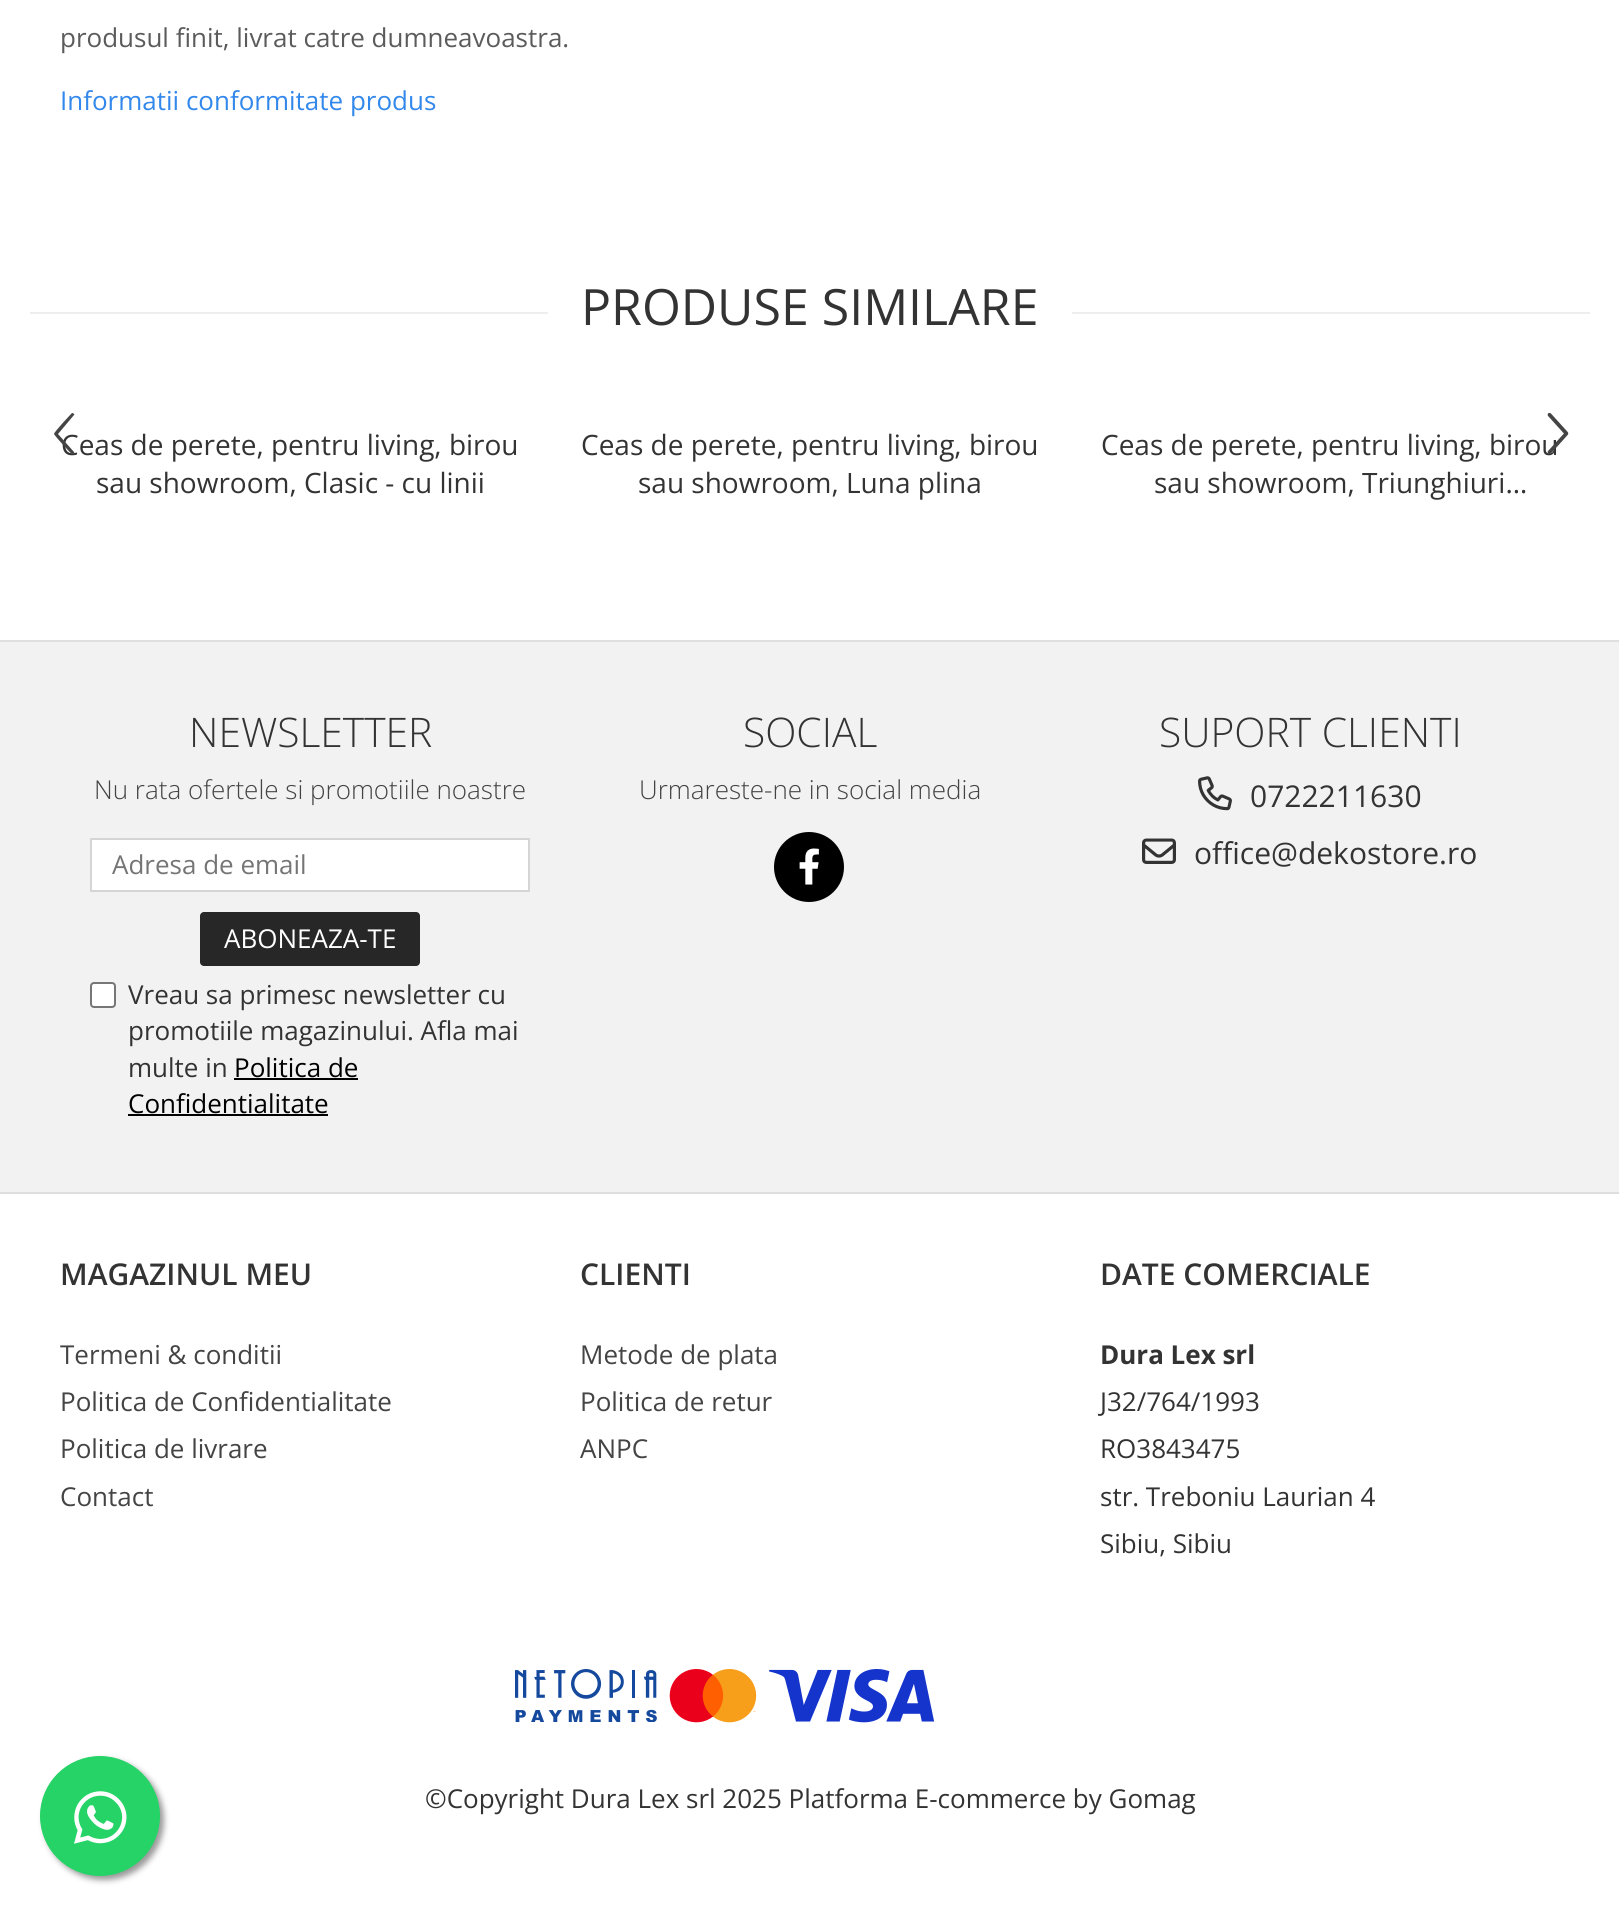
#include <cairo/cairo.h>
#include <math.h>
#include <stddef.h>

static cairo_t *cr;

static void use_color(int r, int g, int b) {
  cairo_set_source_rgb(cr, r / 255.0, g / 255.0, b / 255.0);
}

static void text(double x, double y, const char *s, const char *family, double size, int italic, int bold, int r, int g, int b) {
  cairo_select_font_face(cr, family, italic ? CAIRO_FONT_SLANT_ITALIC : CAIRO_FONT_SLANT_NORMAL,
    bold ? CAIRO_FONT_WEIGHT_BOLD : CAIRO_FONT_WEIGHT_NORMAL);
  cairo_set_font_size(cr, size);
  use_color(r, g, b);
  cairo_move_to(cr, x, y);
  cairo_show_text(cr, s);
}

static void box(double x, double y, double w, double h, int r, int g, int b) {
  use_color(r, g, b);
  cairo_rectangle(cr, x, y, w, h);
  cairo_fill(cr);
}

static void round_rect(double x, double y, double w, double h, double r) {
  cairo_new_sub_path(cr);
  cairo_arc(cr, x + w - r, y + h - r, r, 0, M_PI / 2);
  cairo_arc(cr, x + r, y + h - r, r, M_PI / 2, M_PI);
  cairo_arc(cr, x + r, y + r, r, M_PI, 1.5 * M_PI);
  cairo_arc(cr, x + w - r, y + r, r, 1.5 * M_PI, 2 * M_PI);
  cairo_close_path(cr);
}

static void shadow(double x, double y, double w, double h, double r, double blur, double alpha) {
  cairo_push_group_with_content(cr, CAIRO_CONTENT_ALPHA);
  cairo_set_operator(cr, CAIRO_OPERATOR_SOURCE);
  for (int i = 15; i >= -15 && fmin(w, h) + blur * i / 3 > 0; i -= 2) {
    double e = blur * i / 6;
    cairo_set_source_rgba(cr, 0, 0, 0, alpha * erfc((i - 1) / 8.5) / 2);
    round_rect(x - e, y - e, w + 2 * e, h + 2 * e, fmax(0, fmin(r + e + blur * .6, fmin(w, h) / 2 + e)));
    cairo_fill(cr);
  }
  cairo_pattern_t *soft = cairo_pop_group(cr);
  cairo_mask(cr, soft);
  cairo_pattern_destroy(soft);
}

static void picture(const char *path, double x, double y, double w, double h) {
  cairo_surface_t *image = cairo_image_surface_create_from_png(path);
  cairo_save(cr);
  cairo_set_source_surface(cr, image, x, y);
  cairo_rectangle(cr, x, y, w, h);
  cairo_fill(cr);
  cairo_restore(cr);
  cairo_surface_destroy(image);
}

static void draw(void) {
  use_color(255, 255, 255);
  cairo_paint(cr);
  box(30, 312, 1560, 2, 238, 238, 238);
  box(548, 312, 524, 2, 255, 255, 255);
  box(0, 642, 1619, 550, 242, 242, 242);
  box(0, 640, 1619, 2, 223, 223, 223);
  box(0, 1192, 1619, 2, 223, 223, 223);
  use_color(255, 255, 255);
  cairo_rectangle(cr, 91, 839, 438, 52);
  cairo_fill_preserve(cr);
  use_color(213, 213, 213);
  cairo_stroke(cr);
  use_color(39, 39, 39);
  round_rect(200, 912, 220, 54, 4);
  cairo_fill(cr);
  use_color(255, 255, 255);
  round_rect(91, 983, 24, 24, 3);
  cairo_fill_preserve(cr);
  use_color(118, 118, 118);
  cairo_stroke(cr);
  box(234, 1078, 124, 2, 0, 0, 0);
  box(128, 1114, 200, 2, 0, 0, 0);
  cairo_arc(cr, 809, 867, 35, 0, 2 * M_PI);
  cairo_fill(cr);
  picture("img_02.png", 799, 848, 20, 37);
  picture("img_03.png", 1198, 776, 34, 35);
  picture("img_04.png", 1142, 838, 34, 26);
  picture("img_05.png", 515, 1669, 420, 54);
  use_color(153, 153, 153);
  shadow(44, 1760, 120, 120, 60, 3, 1);
  use_color(37, 211, 102);
  cairo_arc(cr, 100, 1816, 60, 0, 2 * M_PI);
  cairo_fill(cr);
  picture("img_06.png", 74, 1791, 53, 53);
  text(60, 47, "produsul finit, livrat catre dumneavoastra.", "Open Sans", 26, 0, 0, 91, 91, 91);
  text(60, 110, "Informatii conformitate produs", "Open Sans", 26, 0, 0, 51, 136, 235);
  text(581, 325, "PRODUSE SIMILARE", "Open Sans", 50, 0, 0, 51, 51, 51);
  text(61, 455, "Ceas de perete, pentru living, birou", "Open Sans", 28, 0, 0, 51, 51, 51);
  use_color(68, 68, 68);
  cairo_new_path(cr);
  cairo_move_to(cr, 58, 434);
  cairo_line_to(cr, 74, 415);
  cairo_curve_to(cr, 75, 414, 73, 413, 72, 413);
  cairo_curve_to(cr, 71, 414, 54, 432, 54, 434);
  cairo_curve_to(cr, 54, 435, 71, 454, 72, 454);
  cairo_curve_to(cr, 73, 454, 75, 453, 74, 452);
  cairo_close_path(cr);
  cairo_fill(cr);
  text(96, 493, "sau showroom, Clasic - cu linii", "Open Sans", 28, 0, 0, 51, 51, 51);
  text(581, 455, "Ceas de perete, pentru living, birou", "Open Sans", 28, 0, 0, 51, 51, 51);
  text(638, 493, "sau showroom, Luna plina", "Open Sans", 28, 0, 0, 51, 51, 51);
  text(1101, 455, "Ceas de perete, pentru living, birou", "Open Sans", 28, 0, 0, 51, 51, 51);
  picture("img_01.png", 1547, 412, 22, 42);
  text(1154, 493, "sau showroom, Triunghiuri…", "Open Sans", 28, 0, 0, 51, 51, 51);
  text(189, 747, "NEWSLETTER", "Open Sans Light", 40.75, 0, 0, 51, 51, 51);
  text(94, 799, "Nu rata ofertele si promotiile noastre", "Open Sans Light", 26, 0, 0, 68, 68, 68);
  text(112, 874, "Adresa de email", "Open Sans", 26, 0, 0, 117, 117, 117);
  text(224, 948, "ABONEAZA-TE", "Open Sans", 26, 0, 0, 255, 255, 255);
  text(128, 1004, "Vreau sa primesc newsletter cu", "Open Sans", 26, 0, 0, 51, 51, 51);
  text(128, 1040, "promotiile magazinului. Afla mai", "Open Sans", 26, 0, 0, 51, 51, 51);
  text(128, 1077, "multe in", "Open Sans", 26, 0, 0, 51, 51, 51);
  text(234, 1077, "Politica de", "Open Sans", 26, 0, 0, 0, 0, 0);
  text(128, 1113, "Confidentialitate", "Open Sans", 26, 0, 0, 0, 0, 0);
  text(743, 747, "SOCIAL", "Open Sans Light", 40.75, 0, 0, 51, 51, 51);
  text(639, 799, "Urmareste-ne in social media", "Open Sans Light", 26, 0, 0, 68, 68, 68);
  text(1159, 747, "SUPORT CLIENTI", "Open Sans Light", 40.75, 0, 0, 51, 51, 51);
  text(1250, 807, "0722211630", "Open Sans", 30, 0, 0, 51, 51, 51);
  text(1194, 864, "office@dekostore.ro", "Open Sans", 30, 0, 0, 51, 51, 51);
  text(60, 1285, "MAGAZINUL MEU", "Open Sans SemiBold", 30, 0, 0, 51, 51, 51);
  text(60, 1364, "Termeni & conditii", "Open Sans", 26, 0, 0, 68, 68, 68);
  text(60, 1411, "Politica de Confidentialitate", "Open Sans", 26, 0, 0, 68, 68, 68);
  text(60, 1458, "Politica de livrare", "Open Sans", 26, 0, 0, 68, 68, 68);
  text(60, 1506, "Contact", "Open Sans", 26, 0, 0, 68, 68, 68);
  text(580, 1285, "CLIENTI", "Open Sans SemiBold", 30, 0, 0, 51, 51, 51);
  text(580, 1364, "Metode de plata", "Open Sans", 26, 0, 0, 68, 68, 68);
  text(580, 1411, "Politica de retur", "Open Sans", 26, 0, 0, 68, 68, 68);
  text(580, 1458, "ANPC", "Open Sans", 26, 0, 0, 68, 68, 68);
  text(1100, 1285, "DATE COMERCIALE", "Open Sans SemiBold", 30, 0, 0, 51, 51, 51);
  text(1100, 1364, "Dura Lex srl", "Open Sans", 26, 0, 1, 51, 51, 51);
  text(1100, 1411, "J32/764/1993", "Open Sans", 26, 0, 0, 51, 51, 51);
  text(1100, 1458, "RO3843475", "Open Sans", 26, 0, 0, 51, 51, 51);
  text(1100, 1506, "str. Treboniu Laurian 4", "Open Sans", 26, 0, 0, 51, 51, 51);
  text(1100, 1553, "Sibiu, Sibiu", "Open Sans", 26, 0, 0, 51, 51, 51);
  text(425, 1808, "©Copyright Dura Lex srl 2025 Platforma E-commerce by Gomag", "Open Sans", 26, 0, 0, 51, 51, 51);
}

int main(void) {
  cairo_surface_t *surface = cairo_image_surface_create(CAIRO_FORMAT_RGB24, 1619, 1916);
  cr = cairo_create(surface);
  cairo_font_options_t *options = cairo_font_options_create();
  cairo_font_options_set_hint_metrics(options, CAIRO_HINT_METRICS_OFF);
  cairo_font_options_set_hint_style(options, CAIRO_HINT_STYLE_NONE);
  cairo_set_font_options(cr, options);
  cairo_set_miter_limit(cr, 4);
  draw();
  cairo_surface_write_to_png(surface, "out.png");
  cairo_font_options_destroy(options);
  cairo_destroy(cr);
  cairo_surface_destroy(surface);
  return 0;
}
